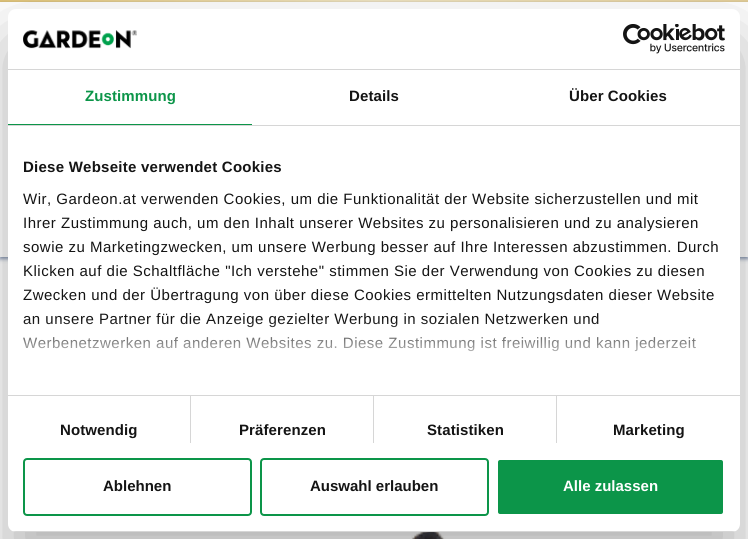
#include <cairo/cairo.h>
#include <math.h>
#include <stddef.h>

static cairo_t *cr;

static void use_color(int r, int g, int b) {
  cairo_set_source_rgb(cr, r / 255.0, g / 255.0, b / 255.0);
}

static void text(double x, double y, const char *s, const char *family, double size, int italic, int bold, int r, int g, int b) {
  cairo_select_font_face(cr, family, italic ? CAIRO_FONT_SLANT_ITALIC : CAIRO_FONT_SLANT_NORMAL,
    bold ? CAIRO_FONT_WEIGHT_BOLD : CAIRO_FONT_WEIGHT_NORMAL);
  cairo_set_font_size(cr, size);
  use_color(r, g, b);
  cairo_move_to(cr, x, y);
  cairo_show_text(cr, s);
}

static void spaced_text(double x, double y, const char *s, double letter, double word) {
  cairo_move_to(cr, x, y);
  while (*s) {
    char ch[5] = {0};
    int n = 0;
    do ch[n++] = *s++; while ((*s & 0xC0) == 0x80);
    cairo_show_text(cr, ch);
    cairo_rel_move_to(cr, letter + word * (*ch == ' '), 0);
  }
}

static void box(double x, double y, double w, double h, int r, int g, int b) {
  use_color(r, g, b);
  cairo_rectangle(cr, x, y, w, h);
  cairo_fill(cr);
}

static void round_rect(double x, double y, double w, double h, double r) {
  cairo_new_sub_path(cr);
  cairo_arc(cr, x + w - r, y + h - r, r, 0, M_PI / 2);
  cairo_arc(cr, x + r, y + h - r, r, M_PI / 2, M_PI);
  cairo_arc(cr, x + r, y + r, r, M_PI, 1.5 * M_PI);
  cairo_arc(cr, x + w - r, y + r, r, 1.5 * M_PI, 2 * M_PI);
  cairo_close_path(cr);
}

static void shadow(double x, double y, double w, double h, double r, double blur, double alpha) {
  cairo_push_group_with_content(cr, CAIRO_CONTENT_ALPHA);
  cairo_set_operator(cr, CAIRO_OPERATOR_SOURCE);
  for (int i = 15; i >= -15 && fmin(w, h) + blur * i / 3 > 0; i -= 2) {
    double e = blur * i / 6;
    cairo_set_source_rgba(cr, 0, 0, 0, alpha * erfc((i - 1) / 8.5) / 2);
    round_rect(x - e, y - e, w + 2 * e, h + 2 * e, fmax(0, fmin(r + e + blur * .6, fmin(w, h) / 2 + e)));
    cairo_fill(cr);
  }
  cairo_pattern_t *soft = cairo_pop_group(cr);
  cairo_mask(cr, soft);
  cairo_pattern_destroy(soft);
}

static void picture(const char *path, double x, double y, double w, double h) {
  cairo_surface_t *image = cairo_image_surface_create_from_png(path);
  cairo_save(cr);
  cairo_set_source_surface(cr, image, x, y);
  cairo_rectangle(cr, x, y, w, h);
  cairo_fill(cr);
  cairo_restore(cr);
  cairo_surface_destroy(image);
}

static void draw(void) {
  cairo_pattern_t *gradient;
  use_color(255, 255, 255);
  cairo_paint(cr);
  gradient = cairo_pattern_create_linear(0, -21, 748, -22);
  cairo_pattern_add_color_stop_rgba(gradient, 0, 0.894, 0.776, 0.471, 1);
  cairo_pattern_add_color_stop_rgba(gradient, 0.5, 0.949, 0.898, 0.761, 1);
  cairo_pattern_add_color_stop_rgba(gradient, 1, 0.91, 0.82, 0.6, 1);
  cairo_set_source(cr, gradient);
  cairo_pattern_destroy(gradient);
  cairo_rectangle(cr, 0, 0, 748, 2);
  cairo_fill(cr);
  cairo_save(cr);
  cairo_set_fill_rule(cr, CAIRO_FILL_RULE_EVEN_ODD);
  cairo_new_path(cr);
  cairo_move_to(cr, 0, 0);
  cairo_line_to(cr, 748, 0);
  cairo_line_to(cr, 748, 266);
  cairo_line_to(cr, 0, 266);
  cairo_close_path(cr);
  cairo_move_to(cr, 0, 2);
  cairo_line_to(cr, 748, 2);
  cairo_line_to(cr, 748, 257);
  cairo_line_to(cr, 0, 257);
  cairo_close_path(cr);
  cairo_clip(cr);
  use_color(8, 39, 94);
  shadow(0, 4, 748, 255, 0, 2, 0.5);
  cairo_restore(cr);
  picture("img_01.png", 411, 532, 44, 7);
  use_color(0, 0, 0);
  shadow(8, 41, 732, 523, 8, 34, 0.3);
  use_color(255, 255, 255);
  round_rect(8, 9, 732, 523, 8);
  cairo_fill(cr);
  box(8, 69, 732, 1, 214, 214, 214);
  picture("img_02.png", 23, 30, 114, 19);
  picture("img_03.png", 623, 24, 102, 30);
  box(8, 125, 732, 1, 214, 214, 214);
  box(8, 124, 244, 1, 12, 149, 73);
  box(8, 395, 732, 1, 214, 214, 214);
  box(190, 396, 1, 47, 214, 214, 214);
  box(373, 396, 1, 47, 214, 214, 214);
  box(556, 396, 1, 47, 214, 214, 214);
  cairo_save(cr);
  round_rect(8, 9, 732, 523, 8);
  cairo_clip(cr);
  box(8, 531, 732, 1, 214, 214, 214);
  cairo_restore(cr);
  round_rect(24, 459, 227, 56, 3);
  use_color(12, 149, 73);
  cairo_stroke(cr);
  round_rect(261, 459, 227, 56, 3);
  cairo_stroke(cr);
  round_rect(497, 459, 227, 56, 3);
  cairo_fill_preserve(cr);
  use_color(255, 255, 255);
  cairo_stroke(cr);
  cairo_select_font_face(cr, "Liberation Sans", CAIRO_FONT_SLANT_NORMAL, CAIRO_FONT_WEIGHT_BOLD);
  cairo_set_font_size(cr, 15);
  use_color(12, 149, 73);
  spaced_text(85, 101, "Zustimmung", 0.1, 0);
  use_color(20, 20, 20);
  spaced_text(349, 101, "Details", 0.1, 0);
  spaced_text(569, 101, "Über Cookies", 0.1, 0);
  spaced_text(23, 172, "Diese Webseite verwendet Cookies", 0.25, 0);
  cairo_select_font_face(cr, "Liberation Sans", CAIRO_FONT_SLANT_NORMAL, CAIRO_FONT_WEIGHT_NORMAL);
  spaced_text(23, 204, "Wir, Gardeon.at verwenden Cookies, um die Funktionalität der Website sicherzustellen und mit", 0.5, 0);
  spaced_text(23, 228, "Ihrer Zustimmung auch, um den Inhalt unserer Websites zu personalisieren und zu analysieren", 0.5, 0);
  spaced_text(23, 252, "sowie zu Marketingzwecken, um unsere Werbung besser auf Ihre Interessen abzustimmen. Durch", 0.5, 0);
  spaced_text(23, 276, "Klicken auf die Schaltfläche \"Ich verstehe\" stimmen Sie der Verwendung von Cookies zu diesen", 0.5, 0);
  spaced_text(23, 300, "Zwecken und der Übertragung von über diese Cookies ermittelten Nutzungsdaten dieser Website", 0.5, 0);
  spaced_text(23, 324, "an unsere Partner für die Anzeige gezielter Werbung in sozialen Netzwerken und", 0.5, 0);
  spaced_text(23, 348, "Werbenetzwerken auf anderen Websites zu. Diese Zustimmung ist freiwillig und kann jederzeit", 0.5, 0);
  gradient = cairo_pattern_create_linear(368, 395, 368, 320);
  cairo_pattern_add_color_stop_rgba(gradient, 0, 1, 1, 1, 1);
  cairo_pattern_add_color_stop_rgba(gradient, 0.5, 1, 1, 1, 0.8);
  cairo_pattern_add_color_stop_rgba(gradient, 1, 1, 1, 1, 0);
  cairo_set_source(cr, gradient);
  cairo_pattern_destroy(gradient);
  cairo_rectangle(cr, 23, 321, 673, 31);
  cairo_fill(cr);
  cairo_select_font_face(cr, "Liberation Sans", CAIRO_FONT_SLANT_NORMAL, CAIRO_FONT_WEIGHT_BOLD);
  use_color(20, 20, 20);
  spaced_text(60, 435, "Notwendig", 0.1, 0);
  spaced_text(239, 435, "Präferenzen", 0.1, 0);
  spaced_text(427, 435, "Statistiken", 0.1, 0);
  spaced_text(613, 435, "Marketing", 0.1, 0);
  text(103, 491, "Ablehnen", "Liberation Sans", 15, 0, 1, 20, 20, 20);
  text(310, 491, "Auswahl erlauben", "Liberation Sans", 15, 0, 1, 20, 20, 20);
  text(563, 491, "Alle zulassen", "Liberation Sans", 15, 0, 1, 255, 255, 255);
}

int main(void) {
  cairo_surface_t *surface = cairo_image_surface_create(CAIRO_FORMAT_RGB24, 748, 539);
  cr = cairo_create(surface);
  cairo_font_options_t *options = cairo_font_options_create();
  cairo_font_options_set_hint_metrics(options, CAIRO_HINT_METRICS_OFF);
  cairo_font_options_set_hint_style(options, CAIRO_HINT_STYLE_NONE);
  cairo_set_font_options(cr, options);
  cairo_set_miter_limit(cr, 4);
  draw();
  cairo_surface_write_to_png(surface, "out.png");
  cairo_font_options_destroy(options);
  cairo_destroy(cr);
  cairo_surface_destroy(surface);
  return 0;
}
